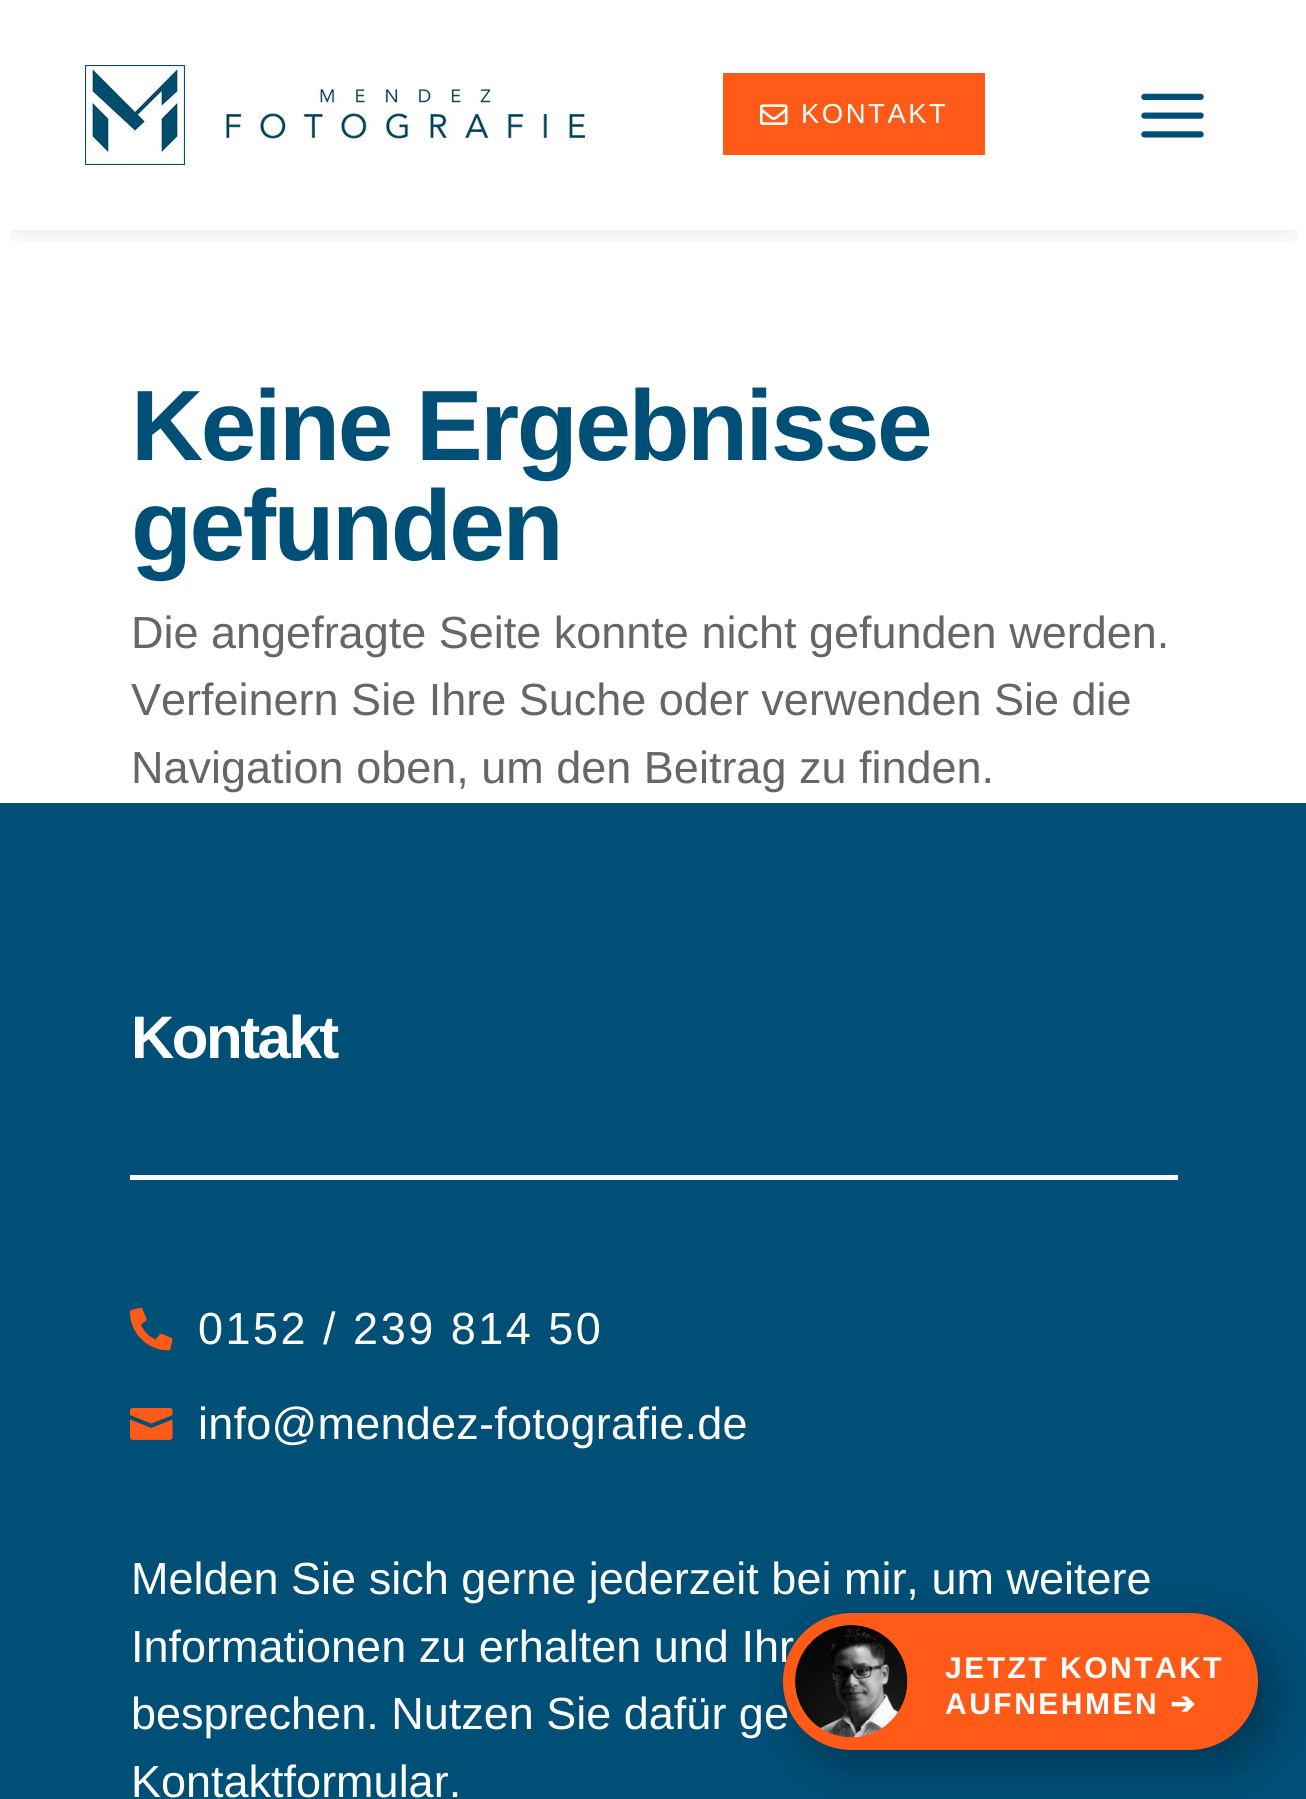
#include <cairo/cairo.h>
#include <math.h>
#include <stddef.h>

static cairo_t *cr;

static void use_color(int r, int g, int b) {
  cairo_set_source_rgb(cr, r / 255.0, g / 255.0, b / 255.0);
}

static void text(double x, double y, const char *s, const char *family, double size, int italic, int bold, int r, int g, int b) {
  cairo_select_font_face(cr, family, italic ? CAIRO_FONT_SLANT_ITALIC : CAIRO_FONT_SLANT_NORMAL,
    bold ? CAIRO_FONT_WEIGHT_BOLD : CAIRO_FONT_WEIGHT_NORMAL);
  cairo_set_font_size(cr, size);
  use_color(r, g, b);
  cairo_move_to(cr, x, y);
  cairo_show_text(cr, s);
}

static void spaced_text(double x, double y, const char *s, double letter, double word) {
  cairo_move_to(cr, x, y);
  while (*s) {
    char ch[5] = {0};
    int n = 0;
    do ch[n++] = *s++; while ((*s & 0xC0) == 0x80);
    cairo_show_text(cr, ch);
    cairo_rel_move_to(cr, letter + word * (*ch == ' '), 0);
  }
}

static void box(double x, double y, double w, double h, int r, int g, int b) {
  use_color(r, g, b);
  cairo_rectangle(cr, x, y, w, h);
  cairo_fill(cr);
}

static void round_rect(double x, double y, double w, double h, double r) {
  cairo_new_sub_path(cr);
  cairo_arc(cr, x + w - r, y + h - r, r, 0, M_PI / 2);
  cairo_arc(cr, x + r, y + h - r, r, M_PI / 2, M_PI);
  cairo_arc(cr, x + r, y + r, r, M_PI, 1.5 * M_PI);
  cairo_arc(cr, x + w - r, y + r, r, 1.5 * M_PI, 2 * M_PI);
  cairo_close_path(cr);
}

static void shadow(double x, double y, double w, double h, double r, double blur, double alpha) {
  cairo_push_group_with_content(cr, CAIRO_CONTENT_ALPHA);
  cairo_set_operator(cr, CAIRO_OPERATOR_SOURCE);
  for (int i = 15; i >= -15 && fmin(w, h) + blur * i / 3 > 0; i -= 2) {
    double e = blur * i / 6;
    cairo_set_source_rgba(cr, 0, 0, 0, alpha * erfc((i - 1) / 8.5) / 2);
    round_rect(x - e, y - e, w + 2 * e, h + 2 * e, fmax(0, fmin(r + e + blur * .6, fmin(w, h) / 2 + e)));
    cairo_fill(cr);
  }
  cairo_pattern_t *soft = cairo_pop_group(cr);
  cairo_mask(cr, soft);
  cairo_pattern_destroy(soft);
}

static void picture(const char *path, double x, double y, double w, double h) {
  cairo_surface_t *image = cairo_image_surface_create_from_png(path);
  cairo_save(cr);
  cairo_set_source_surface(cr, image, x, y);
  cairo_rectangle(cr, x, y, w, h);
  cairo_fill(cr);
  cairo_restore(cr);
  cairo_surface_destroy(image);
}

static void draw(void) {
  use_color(255, 255, 255);
  cairo_paint(cr);
  cairo_save(cr);
  cairo_rectangle(cr, 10, 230, 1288, 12);
  cairo_clip(cr);
  use_color(0, 0, 0);
  shadow(15, 8, 1278, 200, 0, 22.5, 0.3);
  cairo_restore(cr);
  picture("img_01.png", 85, 65, 500, 100);
  box(723, 73, 262, 82, 255, 90, 23);
  picture("img_02.png", 760, 104, 28, 21);
  picture("img_03.png", 1141, 93, 63, 45);
  box(0, 803, 1306, 996, 0, 79, 119);
  use_color(0, 0, 0);
  shadow(798, 1628, 475, 137, 68.5, 22.5, 0.3);
  box(130, 1175, 1048, 5, 255, 255, 255);
  picture("img_05.png", 130, 1307, 43, 44);
  picture("img_06.png", 130, 1408, 43, 32);
  cairo_select_font_face(cr, "Liberation Sans", CAIRO_FONT_SLANT_NORMAL, CAIRO_FONT_WEIGHT_NORMAL);
  cairo_set_font_size(cr, 27.5);
  spaced_text(801, 123, "KONTAKT", 2.5, 0);
  cairo_select_font_face(cr, "Liberation Sans", CAIRO_FONT_SLANT_NORMAL, CAIRO_FONT_WEIGHT_BOLD);
  cairo_set_font_size(cr, 100);
  use_color(0, 79, 119);
  spaced_text(131, 460, "Keine Ergebnisse", -2.5, 0);
  spaced_text(131, 560, "gefunden", -2.5, 0);
  text(131, 648, "Die angefragte Seite konnte nicht gefunden werden.", "Liberation Sans", 45, 0, 0, 102, 102, 102);
  text(131, 715, "Verfeinern Sie Ihre Suche oder verwenden Sie die", "Liberation Sans", 45, 0, 0, 102, 102, 102);
  text(131, 783, "Navigation oben, um den Beitrag zu finden.", "Liberation Sans", 45, 0, 0, 102, 102, 102);
  cairo_select_font_face(cr, "Liberation Sans", CAIRO_FONT_SLANT_NORMAL, CAIRO_FONT_WEIGHT_BOLD);
  cairo_set_font_size(cr, 60);
  use_color(255, 255, 255);
  spaced_text(131, 1058, "Kontakt", -2.5, 0);
  cairo_select_font_face(cr, "Liberation Sans", CAIRO_FONT_SLANT_NORMAL, CAIRO_FONT_WEIGHT_NORMAL);
  cairo_set_font_size(cr, 45);
  spaced_text(198, 1344, "0152 / 239 814 50", 2.5, 0);
  spaced_text(198, 1439, "info@mendez-fotografie.de", 0.25, 0);
  text(131, 1594, "Melden Sie sich gerne jederzeit bei mir, um weitere", "Liberation Sans", 45, 0, 0, 255, 255, 255);
  text(131, 1662, "Informationen zu erhalten und Ihr", "Liberation Sans", 45, 0, 0, 255, 255, 255);
  text(131, 1729, "besprechen. Nutzen Sie dafür ge", "Liberation Sans", 45, 0, 0, 255, 255, 255);
  use_color(255, 90, 23);
  round_rect(783, 1613, 475, 137, 68.5);
  cairo_fill(cr);
  picture("img_04.png", 795, 1625, 113, 113);
  cairo_select_font_face(cr, "DejaVu Sans", CAIRO_FONT_SLANT_NORMAL, CAIRO_FONT_WEIGHT_BOLD);
  cairo_set_font_size(cr, 30);
  use_color(255, 255, 255);
  spaced_text(1170, 1714, "➔", 2.5, 0);
  cairo_select_font_face(cr, "Liberation Sans", CAIRO_FONT_SLANT_NORMAL, CAIRO_FONT_WEIGHT_BOLD);
  spaced_text(945, 1714, "AUFNEHMEN", 2.5, 0);
  spaced_text(945, 1678, "JETZT KONTAKT", 2.5, 0);
  text(131, 1797, "Kontaktformular.", "Liberation Sans", 45, 0, 0, 255, 255, 255);
}

int main(void) {
  cairo_surface_t *surface = cairo_image_surface_create(CAIRO_FORMAT_RGB24, 1306, 1799);
  cr = cairo_create(surface);
  cairo_font_options_t *options = cairo_font_options_create();
  cairo_font_options_set_hint_metrics(options, CAIRO_HINT_METRICS_OFF);
  cairo_font_options_set_hint_style(options, CAIRO_HINT_STYLE_NONE);
  cairo_set_font_options(cr, options);
  cairo_set_miter_limit(cr, 4);
  draw();
  cairo_surface_write_to_png(surface, "out.png");
  cairo_font_options_destroy(options);
  cairo_destroy(cr);
  cairo_surface_destroy(surface);
  return 0;
}
